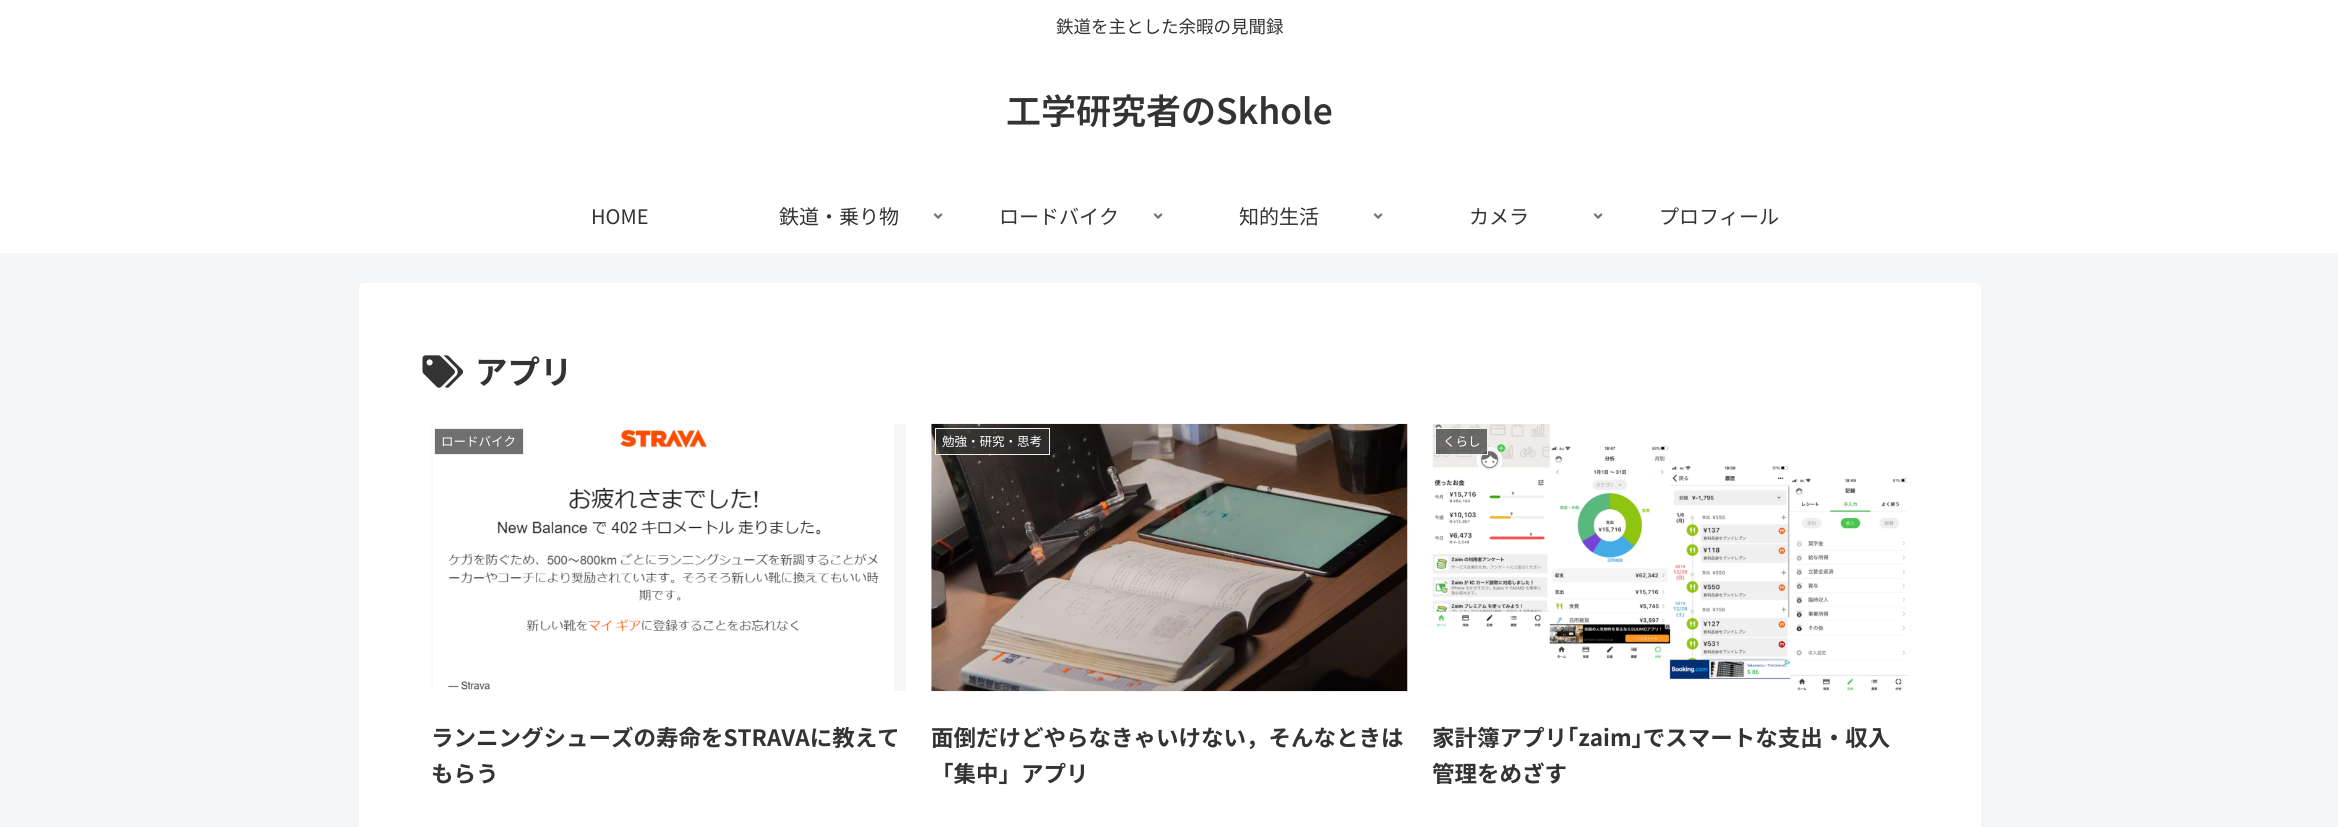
#include <cairo/cairo.h>
#include <math.h>
#include <stddef.h>

static cairo_t *cr;

static void use_color(int r, int g, int b) {
  cairo_set_source_rgb(cr, r / 255.0, g / 255.0, b / 255.0);
}

static void text(double x, double y, const char *s, const char *family, double size, int italic, int bold, int r, int g, int b) {
  cairo_select_font_face(cr, family, italic ? CAIRO_FONT_SLANT_ITALIC : CAIRO_FONT_SLANT_NORMAL,
    bold ? CAIRO_FONT_WEIGHT_BOLD : CAIRO_FONT_WEIGHT_NORMAL);
  cairo_set_font_size(cr, size);
  use_color(r, g, b);
  cairo_move_to(cr, x, y);
  cairo_show_text(cr, s);
}

static void box(double x, double y, double w, double h, int r, int g, int b) {
  use_color(r, g, b);
  cairo_rectangle(cr, x, y, w, h);
  cairo_fill(cr);
}

static void round_rect(double x, double y, double w, double h, double r) {
  cairo_new_sub_path(cr);
  cairo_arc(cr, x + w - r, y + h - r, r, 0, M_PI / 2);
  cairo_arc(cr, x + r, y + h - r, r, M_PI / 2, M_PI);
  cairo_arc(cr, x + r, y + r, r, M_PI, 1.5 * M_PI);
  cairo_arc(cr, x + w - r, y + r, r, 1.5 * M_PI, 2 * M_PI);
  cairo_close_path(cr);
}

static void picture(const char *path, double x, double y, double w, double h) {
  cairo_surface_t *image = cairo_image_surface_create_from_png(path);
  cairo_save(cr);
  cairo_set_source_surface(cr, image, x, y);
  cairo_rectangle(cr, x, y, w, h);
  cairo_fill(cr);
  cairo_restore(cr);
  cairo_surface_destroy(image);
}

static void draw(void) {
  use_color(244, 245, 247);
  cairo_paint(cr);
  box(0, 0, 2338, 253, 255, 255, 255);
  picture("img_01.png", 933, 213, 10, 6);
  picture("img_01.png", 1153, 213, 10, 6);
  picture("img_01.png", 1373, 213, 10, 6);
  picture("img_01.png", 1593, 213, 10, 6);
  round_rect(359, 283, 1622, 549, 5);
  cairo_fill(cr);
  picture("img_02.png", 422, 355, 42, 33);
  picture("img_03.png", 431, 424, 475, 267);
  use_color(112, 112, 112);
  cairo_rectangle(cr, 434.5, 428.5, 89, 26);
  cairo_fill_preserve(cr);
  use_color(238, 238, 238);
  cairo_set_line_width(cr, 1);
  cairo_stroke(cr);
  picture("img_04.png", 931, 423, 477, 269);
  cairo_set_source_rgba(cr, 0.2, 0.2, 0.2, 0.7);
  cairo_rectangle(cr, 935.5, 428.5, 114, 26);
  cairo_fill_preserve(cr);
  use_color(238, 238, 238);
  cairo_stroke(cr);
  picture("img_05.png", 1432, 424, 476, 267);
  cairo_set_source_rgba(cr, 0.2, 0.2, 0.2, 0.7);
  cairo_rectangle(cr, 1435.5, 428.5, 52, 26);
  cairo_fill_preserve(cr);
  use_color(238, 238, 238);
  cairo_stroke(cr);
  text(1056, 33, "鉄道を主とした余暇の見聞録", "Noto Sans JP", 17.5, 0, 0, 51, 51, 51);
  text(1006, 124, "工学研究者のSkhole", "Noto Sans JP SemiBold", 35, 0, 0, 51, 51, 51);
  text(591, 224, "HOME", "Noto Sans JP", 20, 0, 0, 51, 51, 51);
  text(779, 224, "鉄道・乗り物", "Noto Sans JP", 20, 0, 0, 51, 51, 51);
  text(999, 224, "ロードバイク", "Noto Sans JP", 20, 0, 0, 51, 51, 51);
  text(1239, 224, "知的生活", "Noto Sans JP", 20, 0, 0, 51, 51, 51);
  text(1469, 224, "カメラ", "Noto Sans JP", 20, 0, 0, 51, 51, 51);
  text(1659, 224, "プロフィール", "Noto Sans JP", 20, 0, 0, 51, 51, 51);
  text(475, 384, "アプリ", "Noto Sans JP", 32.5, 0, 1, 51, 51, 51);
  text(441, 446, "ロードバイク", "Noto Sans JP", 12.5, 0, 0, 255, 255, 255);
  text(431, 746, "ランニングシューズの寿命をSTRAVAに教えて", "Noto Sans JP", 22.5, 0, 1, 51, 51, 51);
  text(431, 782, "もらう", "Noto Sans JP", 22.5, 0, 1, 51, 51, 51);
  text(942, 446, "勉強・研究・思考", "Noto Sans JP", 12.5, 0, 0, 255, 255, 255);
  text(931, 746, "面倒だけどやらなきゃいけない，そんなときは", "Noto Sans JP", 22.5, 0, 1, 51, 51, 51);
  text(931, 782, "「集中」アプリ", "Noto Sans JP", 22.5, 0, 1, 51, 51, 51);
  text(1443, 446, "くらし", "Noto Sans JP", 12.5, 0, 0, 255, 255, 255);
  text(1432, 746, "家計簿アプリ｢zaim｣でスマートな支出・収入", "Noto Sans JP", 22.5, 0, 1, 51, 51, 51);
  text(1432, 782, "管理をめざす", "Noto Sans JP", 22.5, 0, 1, 51, 51, 51);
}

int main(void) {
  cairo_surface_t *surface = cairo_image_surface_create(CAIRO_FORMAT_RGB24, 2338, 827);
  cr = cairo_create(surface);
  cairo_font_options_t *options = cairo_font_options_create();
  cairo_font_options_set_hint_metrics(options, CAIRO_HINT_METRICS_OFF);
  cairo_font_options_set_hint_style(options, CAIRO_HINT_STYLE_NONE);
  cairo_set_font_options(cr, options);
  cairo_set_miter_limit(cr, 4);
  draw();
  cairo_surface_write_to_png(surface, "out.png");
  cairo_font_options_destroy(options);
  cairo_destroy(cr);
  cairo_surface_destroy(surface);
  return 0;
}
